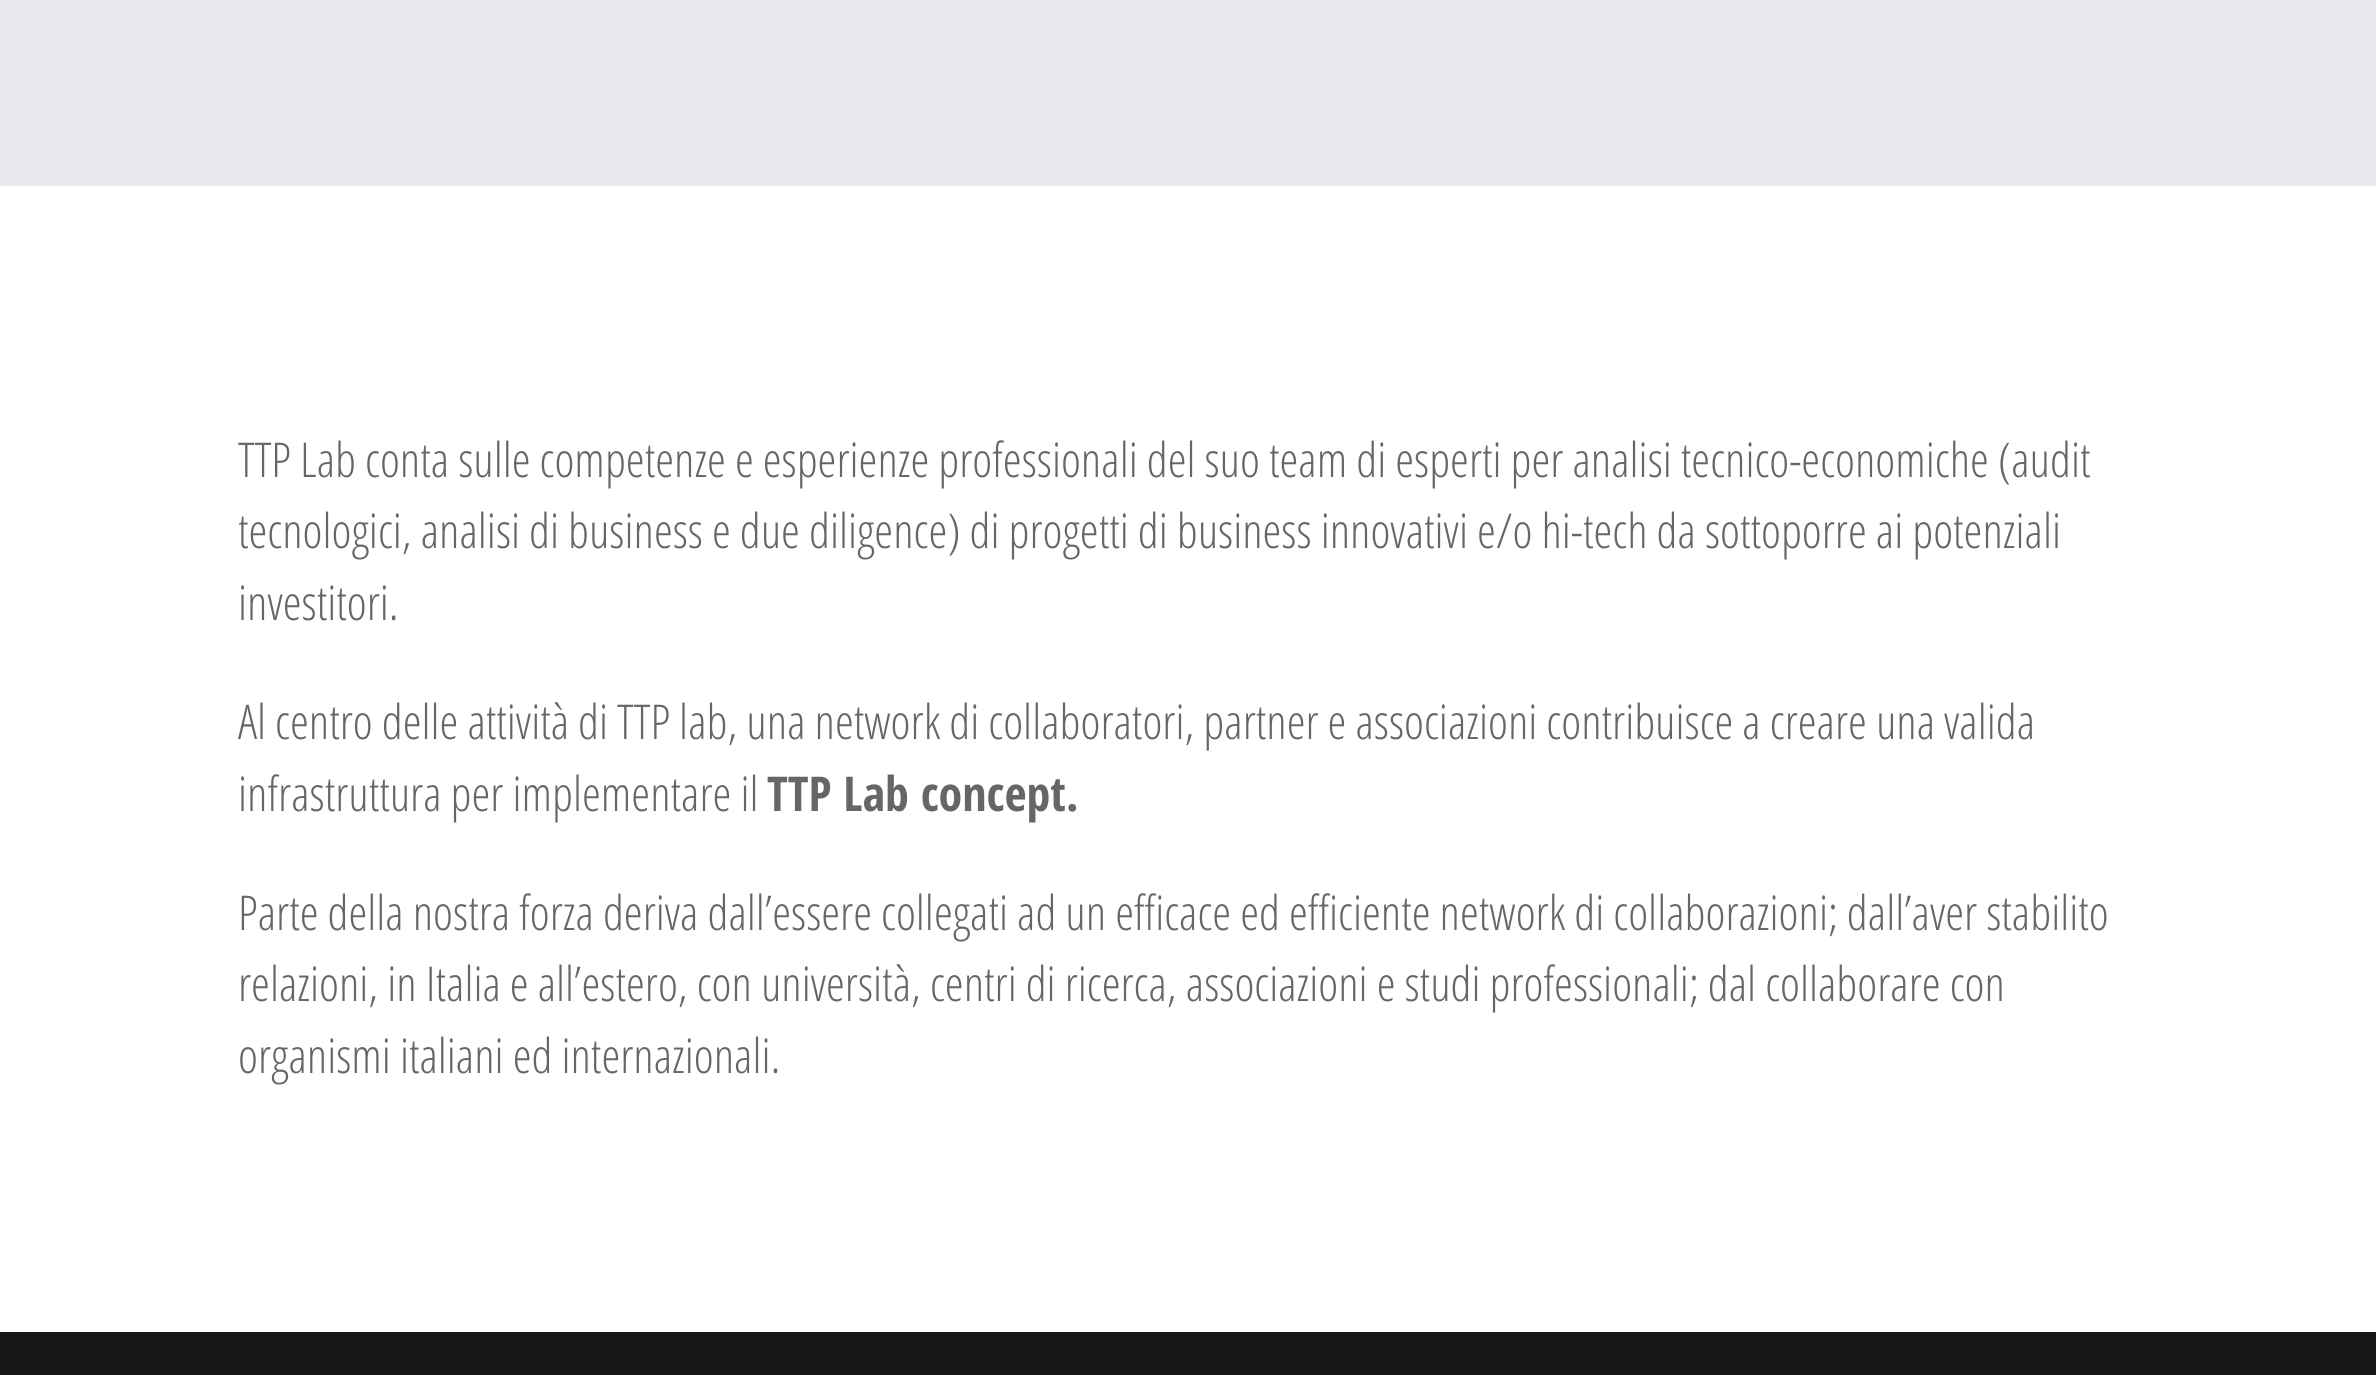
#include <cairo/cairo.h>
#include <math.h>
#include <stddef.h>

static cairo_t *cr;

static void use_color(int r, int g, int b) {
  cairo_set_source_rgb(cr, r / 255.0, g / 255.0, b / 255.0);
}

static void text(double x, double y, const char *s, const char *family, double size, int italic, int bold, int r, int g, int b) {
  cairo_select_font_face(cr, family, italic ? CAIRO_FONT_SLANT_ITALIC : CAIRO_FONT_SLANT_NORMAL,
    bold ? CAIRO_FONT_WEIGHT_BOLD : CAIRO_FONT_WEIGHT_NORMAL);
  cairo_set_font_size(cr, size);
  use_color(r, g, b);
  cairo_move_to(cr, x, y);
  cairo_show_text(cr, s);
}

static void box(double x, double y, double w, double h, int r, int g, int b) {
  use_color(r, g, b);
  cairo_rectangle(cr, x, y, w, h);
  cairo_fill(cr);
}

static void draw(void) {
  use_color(255, 255, 255);
  cairo_paint(cr);
  box(0, 0, 2376, 186, 231, 233, 238);
  box(0, 1332, 2376, 43, 23, 23, 23);
  text(238, 477, "TTP Lab conta sulle competenze e esperienze professionali del suo team di esperti per analisi tecnico-economiche (audit", "Open Sans Condensed Light", 48, 0, 0, 102, 102, 102);
  text(238, 548, "tecnologici, analisi di business e due diligence) di progetti di business innovativi e/o hi-tech da sottoporre ai potenziali", "Open Sans Condensed Light", 48, 0, 0, 102, 102, 102);
  text(238, 620, "investitori.", "Open Sans Condensed Light", 48, 0, 0, 102, 102, 102);
  text(238, 739, "Al centro delle attività di TTP lab, una network di collaboratori, partner e associazioni contribuisce a creare una valida", "Open Sans Condensed Light", 48, 0, 0, 102, 102, 102);
  text(238, 811, "infrastruttura per implementare il", "Open Sans Condensed Light", 48, 0, 0, 102, 102, 102);
  text(767, 811, "TTP Lab concept.", "Open Sans Condensed", 48, 0, 1, 102, 102, 102);
  text(238, 930, "Parte della nostra forza deriva dall’essere collegati ad un efficace ed efficiente network di collaborazioni; dall’aver stabilito", "Open Sans Condensed Light", 48, 0, 0, 102, 102, 102);
  text(238, 1001, "relazioni, in Italia e all’estero, con università, centri di ricerca, associazioni e studi professionali; dal collaborare con", "Open Sans Condensed Light", 48, 0, 0, 102, 102, 102);
  text(238, 1073, "organismi italiani ed internazionali.", "Open Sans Condensed Light", 48, 0, 0, 102, 102, 102);
}

int main(void) {
  cairo_surface_t *surface = cairo_image_surface_create(CAIRO_FORMAT_RGB24, 2376, 1375);
  cr = cairo_create(surface);
  cairo_font_options_t *options = cairo_font_options_create();
  cairo_font_options_set_hint_metrics(options, CAIRO_HINT_METRICS_OFF);
  cairo_font_options_set_hint_style(options, CAIRO_HINT_STYLE_NONE);
  cairo_set_font_options(cr, options);
  cairo_set_miter_limit(cr, 4);
  draw();
  cairo_surface_write_to_png(surface, "out.png");
  cairo_font_options_destroy(options);
  cairo_destroy(cr);
  cairo_surface_destroy(surface);
  return 0;
}
